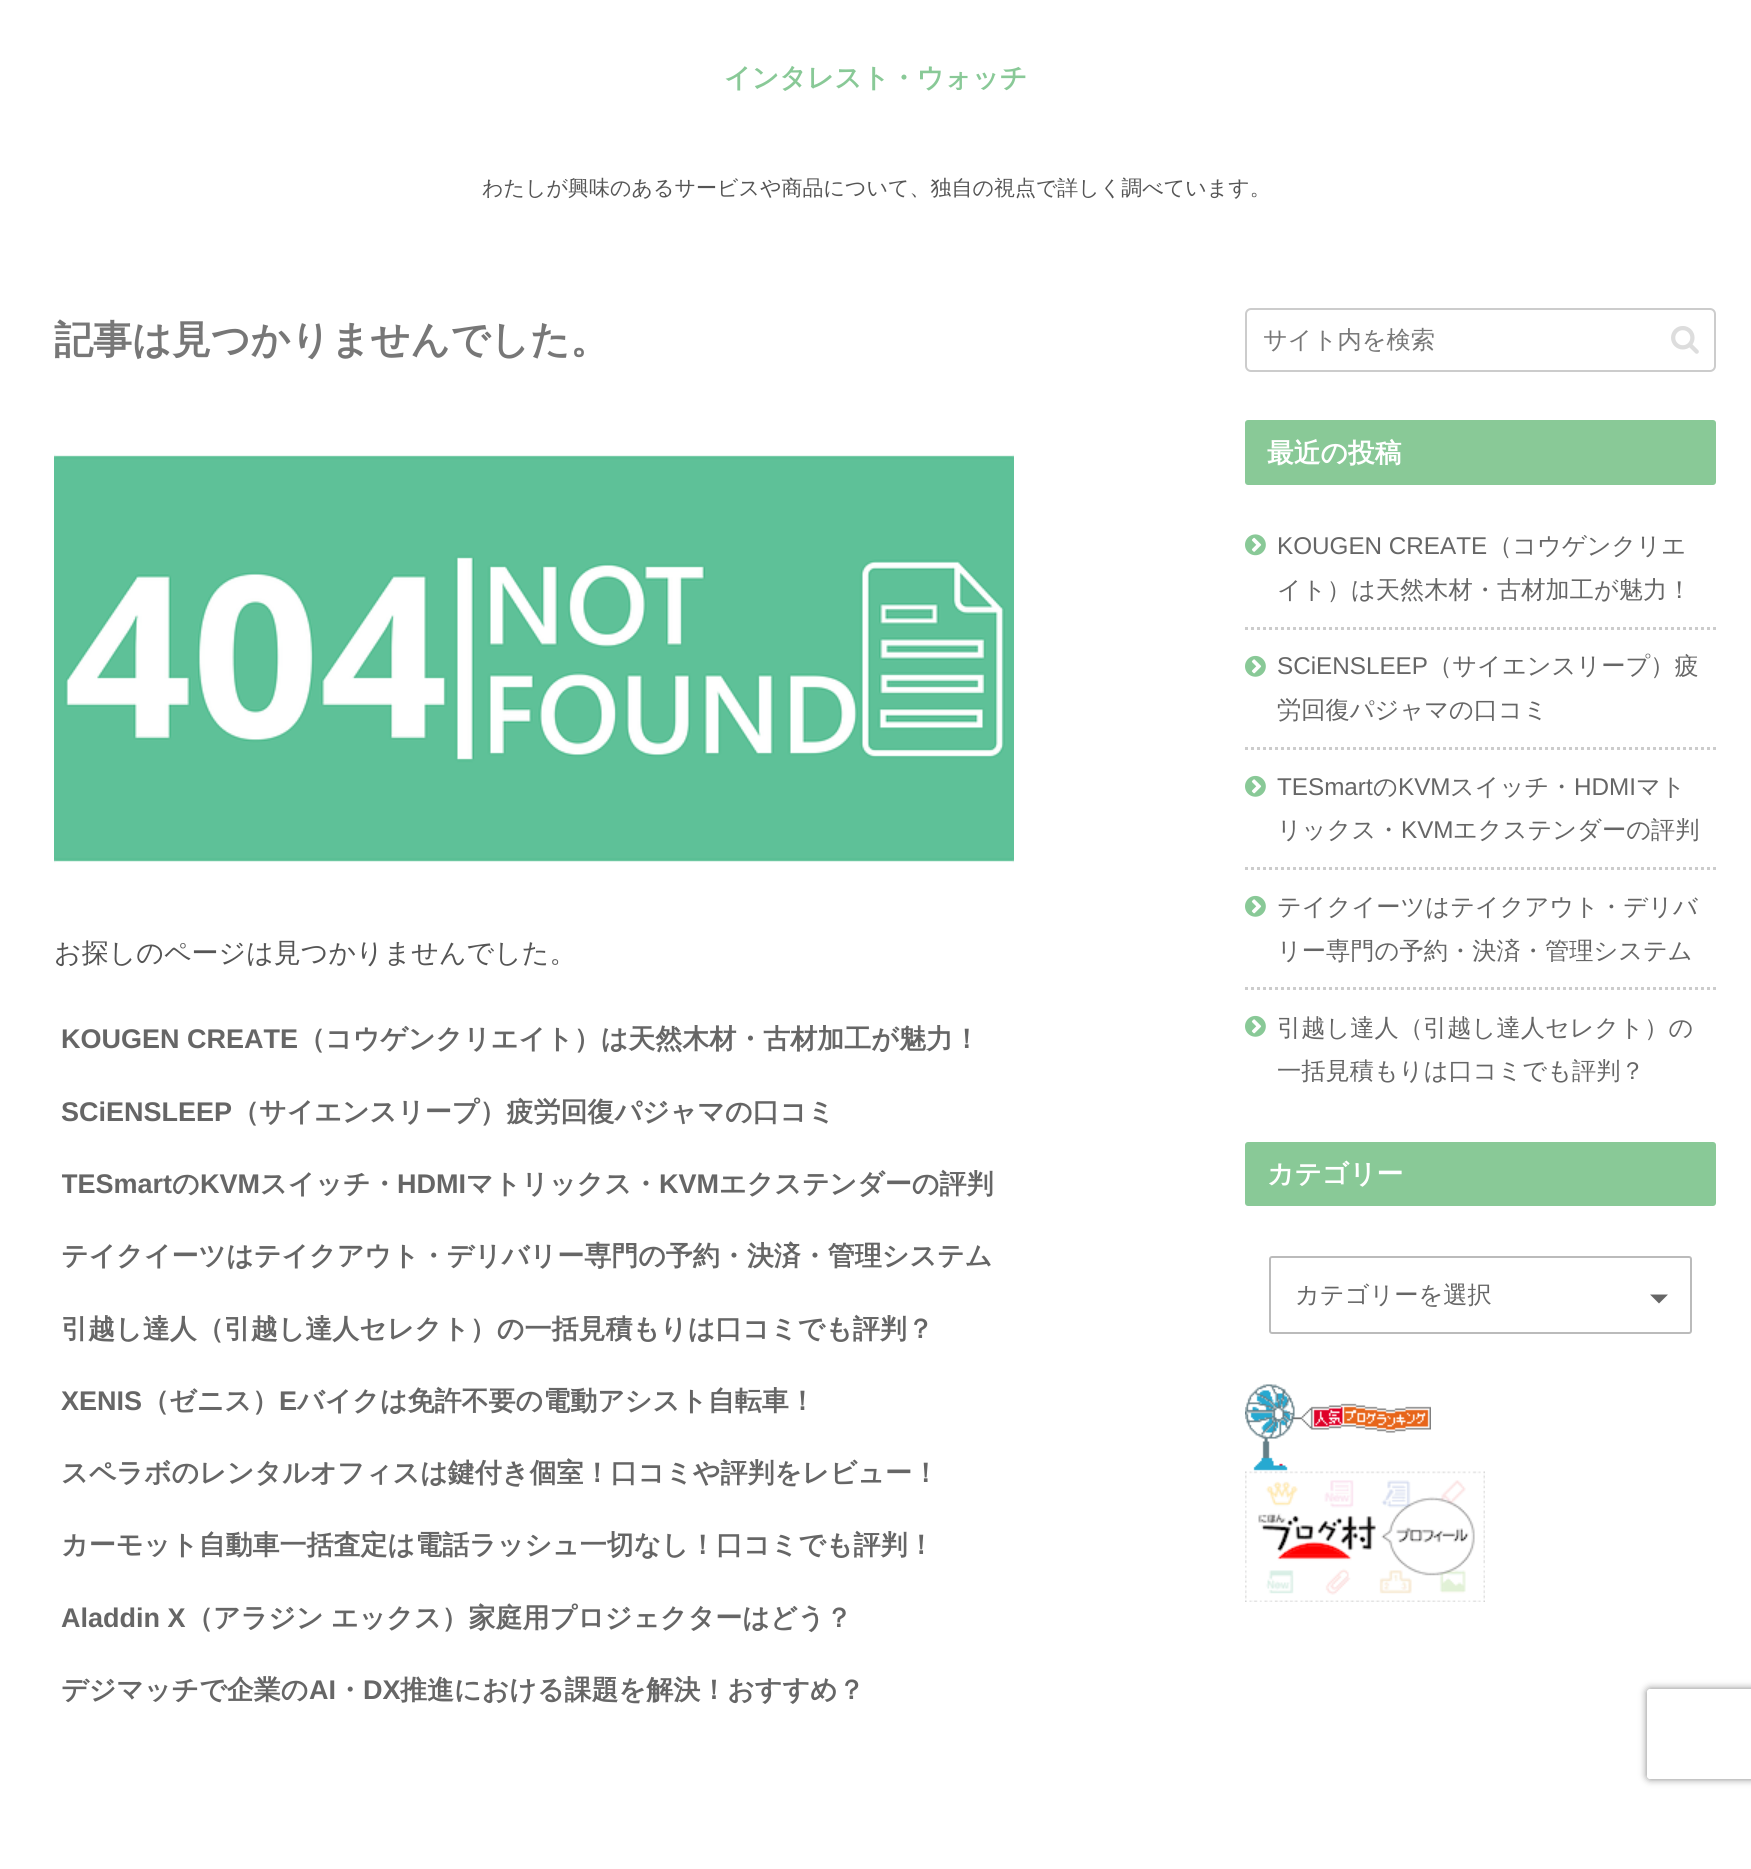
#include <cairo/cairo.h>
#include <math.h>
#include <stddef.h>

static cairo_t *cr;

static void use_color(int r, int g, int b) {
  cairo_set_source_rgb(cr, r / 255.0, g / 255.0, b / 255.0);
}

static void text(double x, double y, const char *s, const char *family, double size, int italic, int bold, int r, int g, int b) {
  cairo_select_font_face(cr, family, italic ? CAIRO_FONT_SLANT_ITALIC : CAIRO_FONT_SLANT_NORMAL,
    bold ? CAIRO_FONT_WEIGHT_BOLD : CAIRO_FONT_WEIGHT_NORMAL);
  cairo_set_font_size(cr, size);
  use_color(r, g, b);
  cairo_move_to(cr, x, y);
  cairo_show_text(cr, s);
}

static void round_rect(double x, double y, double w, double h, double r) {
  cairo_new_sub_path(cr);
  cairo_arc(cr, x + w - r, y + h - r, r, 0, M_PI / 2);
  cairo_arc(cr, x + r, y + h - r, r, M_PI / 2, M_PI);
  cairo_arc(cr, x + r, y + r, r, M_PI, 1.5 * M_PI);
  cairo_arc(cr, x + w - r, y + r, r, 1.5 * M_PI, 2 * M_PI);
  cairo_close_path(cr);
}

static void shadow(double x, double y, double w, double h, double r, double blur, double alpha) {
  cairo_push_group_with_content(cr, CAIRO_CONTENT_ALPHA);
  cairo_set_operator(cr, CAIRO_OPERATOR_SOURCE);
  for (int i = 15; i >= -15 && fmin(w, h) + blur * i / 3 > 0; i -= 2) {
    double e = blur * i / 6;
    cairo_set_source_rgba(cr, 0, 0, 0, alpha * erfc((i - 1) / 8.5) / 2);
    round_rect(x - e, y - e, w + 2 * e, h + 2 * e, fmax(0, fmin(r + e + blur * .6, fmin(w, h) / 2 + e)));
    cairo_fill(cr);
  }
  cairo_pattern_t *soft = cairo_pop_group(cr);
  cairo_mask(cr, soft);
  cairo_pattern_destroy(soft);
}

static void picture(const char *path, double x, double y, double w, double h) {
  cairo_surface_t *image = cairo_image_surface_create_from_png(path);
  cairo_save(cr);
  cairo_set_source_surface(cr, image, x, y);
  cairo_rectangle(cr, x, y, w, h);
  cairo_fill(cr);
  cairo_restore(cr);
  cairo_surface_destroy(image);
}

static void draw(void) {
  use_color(255, 255, 255);
  cairo_paint(cr);
  picture("img_01.png", 54, 454, 960, 409);
  round_rect(1246, 309, 469, 62, 5);
  use_color(204, 204, 204);
  cairo_stroke(cr);
  picture("img_02.png", 1671, 326, 28, 28);
  use_color(137, 201, 151);
  round_rect(1245, 420, 471, 65, 3);
  cairo_fill(cr);
  cairo_new_path(cr);
  cairo_move_to(cr, 1245, 628.5);
  cairo_line_to(cr, 1716, 628.5);
  use_color(204, 204, 204);
  cairo_set_line_width(cr, 3);
  cairo_set_dash(cr, (double[]){3, 3}, 2, 0);
  cairo_stroke(cr);
  picture("img_03.png", 1245, 534, 21, 22);
  cairo_new_path(cr);
  cairo_move_to(cr, 1245, 748.5);
  cairo_line_to(cr, 1716, 748.5);
  cairo_stroke(cr);
  picture("img_04.png", 1245, 655, 21, 22);
  cairo_new_path(cr);
  cairo_move_to(cr, 1245, 868.5);
  cairo_line_to(cr, 1716, 868.5);
  cairo_stroke(cr);
  picture("img_04.png", 1245, 775, 21, 22);
  cairo_new_path(cr);
  cairo_move_to(cr, 1245, 988.5);
  cairo_line_to(cr, 1716, 988.5);
  cairo_stroke(cr);
  picture("img_04.png", 1245, 895, 21, 22);
  picture("img_04.png", 1245, 1015, 21, 22);
  use_color(137, 201, 151);
  round_rect(1245, 1142, 471, 64, 3);
  cairo_fill(cr);
  round_rect(1270, 1257, 421, 76, 2);
  use_color(187, 187, 187);
  cairo_set_line_width(cr, 2);
  cairo_set_dash(cr, NULL, 0, 0);
  cairo_stroke(cr);
  use_color(102, 102, 102);
  cairo_new_path(cr);
  cairo_move_to(cr, 1650, 1294.5);
  cairo_line_to(cr, 1668, 1294.5);
  cairo_line_to(cr, 1659, 1303.5);
  cairo_close_path(cr);
  cairo_fill(cr);
  picture("img_05.png", 1245, 1384, 186, 87);
  picture("img_06.png", 1245, 1471, 240, 131);
  cairo_save(cr);
  cairo_set_fill_rule(cr, CAIRO_FILL_RULE_EVEN_ODD);
  cairo_new_path(cr);
  cairo_move_to(cr, 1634, 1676);
  cairo_line_to(cr, 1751, 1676);
  cairo_line_to(cr, 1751, 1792);
  cairo_line_to(cr, 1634, 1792);
  cairo_close_path(cr);
  cairo_move_to(cr, 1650, 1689);
  cairo_line_to(cr, 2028, 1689);
  cairo_curve_to(cr, 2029.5, 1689, 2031, 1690.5, 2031, 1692);
  cairo_line_to(cr, 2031, 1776);
  cairo_curve_to(cr, 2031, 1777.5, 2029.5, 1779, 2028, 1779);
  cairo_line_to(cr, 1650, 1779);
  cairo_curve_to(cr, 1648.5, 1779, 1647, 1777.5, 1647, 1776);
  cairo_line_to(cr, 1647, 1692);
  cairo_curve_to(cr, 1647, 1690.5, 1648.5, 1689, 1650, 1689);
  cairo_close_path(cr);
  cairo_clip(cr);
  use_color(128, 128, 128);
  shadow(1647, 1689, 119, 90, 3, 4, 1);
  cairo_restore(cr);
  text(724, 87, "インタレスト・ウォッチ", "WenQuanYi Zen Hei", 27, 0, 1, 137, 201, 151);
  text(482, 195, "わたしが興味のあるサービスや商品について、独自の視点で詳しく調べています。", "WenQuanYi Zen Hei Medium", 21, 0, 0, 85, 85, 85);
  text(54, 353, "記事は見つかりませんでした。", "WenQuanYi Zen Hei", 39, 0, 1, 119, 119, 119);
  text(54, 962, "お探しのページは見つかりませんでした。", "WenQuanYi Zen Hei Medium", 27, 0, 0, 85, 85, 85);
  text(61, 1048, "KOUGEN CREATE", "Liberation Sans", 27, 0, 1, 102, 102, 102);
  text(298, 1048, "（コウゲンクリエイト）は天然木材・古材加工が魅力！", "WenQuanYi Zen Hei", 27, 0, 1, 102, 102, 102);
  text(61, 1121, "SCiENSLEEP", "Liberation Sans", 27, 0, 1, 102, 102, 102);
  text(232, 1121, "（サイエンスリープ）疲労回復パジャマの口コミ", "WenQuanYi Zen Hei", 27, 0, 1, 102, 102, 102);
  cairo_save(cr);
  cairo_rectangle(cr, 62, 1167, 1075, 36);
  cairo_clip(cr);
  text(61, 1193, "TESmart", "Liberation Sans", 27, 0, 1, 102, 102, 102);
  cairo_restore(cr);
  text(172, 1193, "の", "WenQuanYi Zen Hei", 27, 0, 1, 102, 102, 102);
  text(200, 1193, "KVM", "Liberation Sans", 27, 0, 1, 102, 102, 102);
  text(260, 1193, "スイッチ・", "WenQuanYi Zen Hei", 27, 0, 1, 102, 102, 102);
  text(397, 1193, "HDMI", "Liberation Sans", 27, 0, 1, 102, 102, 102);
  text(466, 1193, "マトリックス・", "WenQuanYi Zen Hei", 27, 0, 1, 102, 102, 102);
  text(659, 1193, "KVM", "Liberation Sans", 27, 0, 1, 102, 102, 102);
  text(719, 1193, "エクステンダーの評判", "WenQuanYi Zen Hei", 27, 0, 1, 102, 102, 102);
  text(61, 1265, "テイクイーツはテイクアウト・デリバリー専門の予約・決済・管理システム", "WenQuanYi Zen Hei", 27, 0, 1, 102, 102, 102);
  text(61, 1338, "引越し達人（引越し達人セレクト）の一括見積もりは口コミでも評判？", "WenQuanYi Zen Hei", 27, 0, 1, 102, 102, 102);
  text(61, 1410, "XENIS", "Liberation Sans", 27, 0, 1, 102, 102, 102);
  text(142, 1410, "（ゼニス）", "WenQuanYi Zen Hei", 27, 0, 1, 102, 102, 102);
  text(279, 1410, "E", "Liberation Sans", 27, 0, 1, 102, 102, 102);
  text(297, 1410, "バイクは免許不要の電動アシスト自転車！", "WenQuanYi Zen Hei", 27, 0, 1, 102, 102, 102);
  text(61, 1482, "スペラボのレンタルオフィスは鍵付き個室！口コミや評判をレビュー！", "WenQuanYi Zen Hei", 27, 0, 1, 102, 102, 102);
  text(61, 1554, "カーモット自動車一括査定は電話ラッシュ一切なし！口コミでも評判！", "WenQuanYi Zen Hei", 27, 0, 1, 102, 102, 102);
  text(61, 1627, "Aladdin X", "Liberation Sans", 27, 0, 1, 102, 102, 102);
  text(186, 1627, "（アラジン", "WenQuanYi Zen Hei", 27, 0, 1, 102, 102, 102);
  text(331, 1627, "エックス）家庭用プロジェクターはどう？", "WenQuanYi Zen Hei", 27, 0, 1, 102, 102, 102);
  text(61, 1699, "デジマッチで企業の", "WenQuanYi Zen Hei", 27, 0, 1, 102, 102, 102);
  text(309, 1699, "AI", "Liberation Sans", 27, 0, 1, 102, 102, 102);
  text(336, 1699, "・", "WenQuanYi Zen Hei", 27, 0, 1, 102, 102, 102);
  text(363, 1699, "DX", "Liberation Sans", 27, 0, 1, 102, 102, 102);
  text(400, 1699, "推進における課題を解決！おすすめ？", "WenQuanYi Zen Hei", 27, 0, 1, 102, 102, 102);
  text(1263, 348, "サイト内を検索", "WenQuanYi Zen Hei Medium", 24.25, 0, 0, 119, 119, 119);
  text(1267, 462, "最近の投稿", "WenQuanYi Zen Hei", 26.75, 0, 1, 255, 255, 255);
  text(1277, 554, "KOUGEN CREATE", "Liberation Sans", 24.25, 0, 0, 102, 102, 102);
  text(1488, 554, "（コウゲンクリエ", "WenQuanYi Zen Hei Medium", 24.25, 0, 0, 102, 102, 102);
  text(1277, 598, "イト）は天然木材・古材加工が魅力！", "WenQuanYi Zen Hei Medium", 24.25, 0, 0, 102, 102, 102);
  text(1277, 674, "SCiENSLEEP", "Liberation Sans", 24.25, 0, 0, 102, 102, 102);
  text(1428, 674, "（サイエンスリープ）疲", "WenQuanYi Zen Hei Medium", 24.25, 0, 0, 102, 102, 102);
  text(1277, 718, "労回復パジャマの口コミ", "WenQuanYi Zen Hei Medium", 24.25, 0, 0, 102, 102, 102);
  text(1277, 795, "TESmart", "Liberation Sans", 24.25, 0, 0, 102, 102, 102);
  text(1373, 795, "の", "WenQuanYi Zen Hei Medium", 24.25, 0, 0, 102, 102, 102);
  text(1398, 795, "KVM", "Liberation Sans", 24.25, 0, 0, 102, 102, 102);
  text(1450, 795, "スイッチ・", "WenQuanYi Zen Hei Medium", 24.25, 0, 0, 102, 102, 102);
  text(1574, 795, "HDMI", "Liberation Sans", 24.25, 0, 0, 102, 102, 102);
  text(1636, 795, "マト", "WenQuanYi Zen Hei Medium", 24.25, 0, 0, 102, 102, 102);
  text(1277, 838, "リックス・", "WenQuanYi Zen Hei Medium", 24.25, 0, 0, 102, 102, 102);
  text(1401, 838, "KVM", "Liberation Sans", 24.25, 0, 0, 102, 102, 102);
  text(1453, 838, "エクステンダーの評判", "WenQuanYi Zen Hei Medium", 24.25, 0, 0, 102, 102, 102);
  text(1277, 915, "テイクイーツはテイクアウト・デリバ", "WenQuanYi Zen Hei Medium", 24.25, 0, 0, 102, 102, 102);
  text(1277, 959, "リー専門の予約・決済・管理システム", "WenQuanYi Zen Hei Medium", 24.25, 0, 0, 102, 102, 102);
  text(1277, 1036, "引越し達人（引越し達人セレクト）の", "WenQuanYi Zen Hei Medium", 24.25, 0, 0, 102, 102, 102);
  text(1277, 1079, "一括見積もりは口コミでも評判？", "WenQuanYi Zen Hei Medium", 24.25, 0, 0, 102, 102, 102);
  text(1267, 1183, "カテゴリー", "WenQuanYi Zen Hei", 26.75, 0, 1, 255, 255, 255);
  text(1295, 1303, "カテゴリーを選択", "WenQuanYi Zen Hei Medium", 24.25, 0, 0, 102, 102, 102);
}

int main(void) {
  cairo_surface_t *surface = cairo_image_surface_create(CAIRO_FORMAT_RGB24, 1751, 1869);
  cr = cairo_create(surface);
  cairo_font_options_t *options = cairo_font_options_create();
  cairo_font_options_set_hint_metrics(options, CAIRO_HINT_METRICS_OFF);
  cairo_font_options_set_hint_style(options, CAIRO_HINT_STYLE_NONE);
  cairo_set_font_options(cr, options);
  cairo_set_miter_limit(cr, 4);
  draw();
  cairo_surface_write_to_png(surface, "out.png");
  cairo_font_options_destroy(options);
  cairo_destroy(cr);
  cairo_surface_destroy(surface);
  return 0;
}
